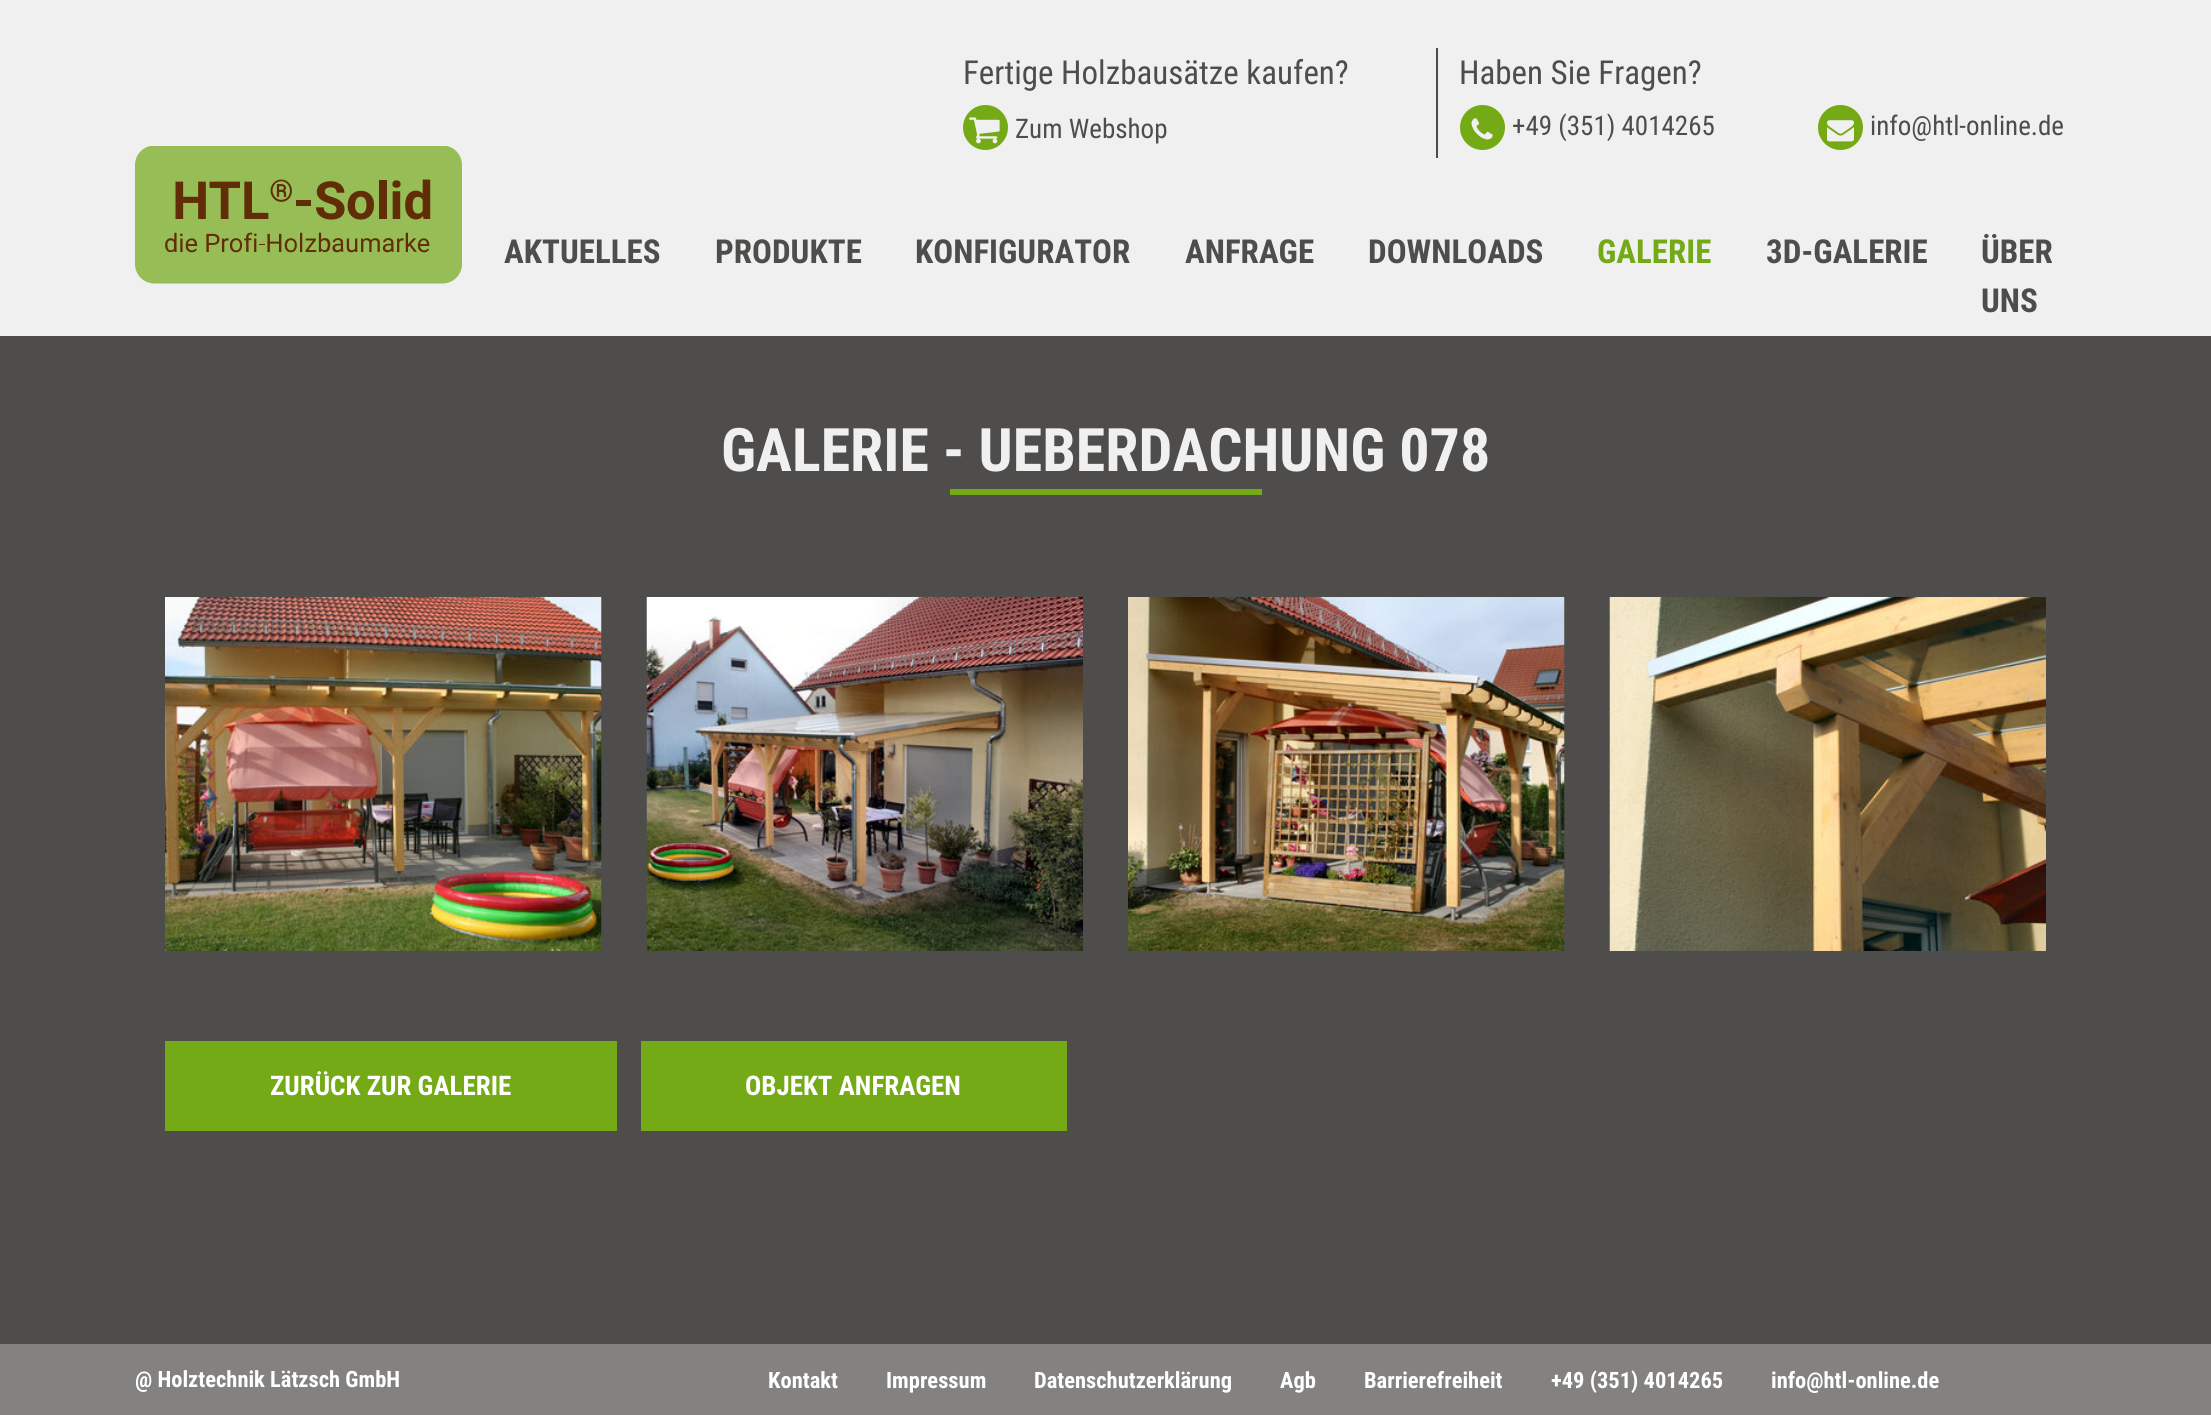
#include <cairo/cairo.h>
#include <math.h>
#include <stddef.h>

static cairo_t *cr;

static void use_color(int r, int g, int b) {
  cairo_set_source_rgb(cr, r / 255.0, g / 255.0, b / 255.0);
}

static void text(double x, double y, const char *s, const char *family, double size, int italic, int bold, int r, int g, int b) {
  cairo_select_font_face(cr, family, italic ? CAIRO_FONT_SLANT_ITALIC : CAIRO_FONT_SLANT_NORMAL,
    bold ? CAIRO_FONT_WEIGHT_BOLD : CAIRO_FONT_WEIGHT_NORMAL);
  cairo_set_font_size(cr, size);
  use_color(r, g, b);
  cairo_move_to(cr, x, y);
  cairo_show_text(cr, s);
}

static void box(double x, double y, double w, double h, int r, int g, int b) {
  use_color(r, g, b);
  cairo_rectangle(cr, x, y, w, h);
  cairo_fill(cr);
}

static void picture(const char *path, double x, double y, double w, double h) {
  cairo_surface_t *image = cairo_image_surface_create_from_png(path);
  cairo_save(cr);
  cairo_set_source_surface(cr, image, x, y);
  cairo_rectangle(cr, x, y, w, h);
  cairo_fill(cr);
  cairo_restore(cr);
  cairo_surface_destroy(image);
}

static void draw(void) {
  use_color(78, 77, 75);
  cairo_paint(cr);
  box(0, 0, 2211, 336, 240, 240, 240);
  box(1436, 48, 2, 110, 78, 77, 75);
  use_color(116, 170, 22);
  cairo_arc(cr, 985.5, 127.5, 22.5, 0, 2 * M_PI);
  cairo_fill(cr);
  picture("img_01.png", 969, 117, 31, 27);
  cairo_arc(cr, 1482.5, 127.5, 22.5, 0, 2 * M_PI);
  cairo_fill(cr);
  picture("img_02.png", 1471, 118, 22, 22);
  cairo_arc(cr, 1840.5, 127.5, 22.5, 0, 2 * M_PI);
  cairo_fill(cr);
  picture("img_03.png", 1827, 120, 27, 22);
  picture("img_04.png", 135, 146, 327, 138);
  box(950, 489, 312, 6, 116, 170, 22);
  picture("img_05.png", 165, 597, 437, 354);
  picture("img_06.png", 646, 597, 437, 354);
  picture("img_07.png", 1128, 597, 437, 354);
  picture("img_08.png", 1609, 597, 437, 354);
  box(165, 1041, 452, 90, 116, 170, 22);
  box(641, 1041, 426, 90, 116, 170, 22);
  box(0, 1344, 2211, 71, 131, 130, 129);
  text(963, 84, "Fertige Holzbausätze kaufen?", "Roboto Condensed", 33, 0, 0, 78, 77, 75);
  text(1015, 138, "Zum Webshop", "Roboto Condensed", 27, 0, 0, 78, 77, 75);
  text(1459, 84, "Haben Sie Fragen?", "Roboto Condensed", 33, 0, 0, 78, 77, 75);
  text(1512, 135, "+49 (351) 4014265", "Roboto Condensed", 27, 0, 0, 78, 77, 75);
  text(1870, 135, "info@htl-online.de", "Roboto Condensed", 27, 0, 0, 78, 77, 75);
  text(504, 263, "AKTUELLES", "Roboto Condensed", 33, 0, 1, 78, 77, 75);
  text(715, 263, "PRODUKTE", "Roboto Condensed", 33, 0, 1, 78, 77, 75);
  text(915, 263, "KONFIGURATOR", "Roboto Condensed", 33, 0, 1, 78, 77, 75);
  text(1185, 263, "ANFRAGE", "Roboto Condensed", 33, 0, 1, 78, 77, 75);
  text(1368, 263, "DOWNLOADS", "Roboto Condensed", 33, 0, 1, 78, 77, 75);
  text(1597, 263, "GALERIE", "Roboto Condensed", 33, 0, 1, 116, 170, 22);
  text(1766, 263, "3D-GALERIE", "Roboto Condensed", 33, 0, 1, 78, 77, 75);
  text(1981, 263, "ÜBER", "Roboto Condensed", 33, 0, 1, 78, 77, 75);
  text(1981, 312, "UNS", "Roboto Condensed", 33, 0, 1, 78, 77, 75);
  text(721, 471, "GALERIE - UEBERDACHUNG 078", "Roboto Condensed", 60, 0, 1, 240, 240, 240);
  text(270, 1095, "ZURÜCK ZUR GALERIE", "Roboto Condensed", 27, 0, 1, 255, 255, 255);
  text(745, 1095, "OBJEKT ANFRAGEN", "Roboto Condensed", 27, 0, 1, 255, 255, 255);
  text(135, 1387, "@ Holztechnik Lätzsch GmbH", "Roboto Condensed", 22.5, 0, 1, 255, 255, 255);
  text(768, 1388, "Kontakt", "Roboto Condensed", 22.5, 0, 1, 255, 255, 255);
  text(886, 1388, "Impressum", "Roboto Condensed", 22.5, 0, 1, 255, 255, 255);
  text(1034, 1388, "Datenschutzerklärung", "Roboto Condensed", 22.5, 0, 1, 255, 255, 255);
  text(1280, 1388, "Agb", "Roboto Condensed", 22.5, 0, 1, 255, 255, 255);
  text(1364, 1388, "Barrierefreiheit", "Roboto Condensed", 22.5, 0, 1, 255, 255, 255);
  text(1551, 1388, "+49 (351) 4014265", "Roboto Condensed", 22.5, 0, 1, 255, 255, 255);
  text(1771, 1388, "info@htl-online.de", "Roboto Condensed", 22.5, 0, 1, 255, 255, 255);
}

int main(void) {
  cairo_surface_t *surface = cairo_image_surface_create(CAIRO_FORMAT_RGB24, 2211, 1415);
  cr = cairo_create(surface);
  cairo_font_options_t *options = cairo_font_options_create();
  cairo_font_options_set_hint_metrics(options, CAIRO_HINT_METRICS_OFF);
  cairo_font_options_set_hint_style(options, CAIRO_HINT_STYLE_NONE);
  cairo_set_font_options(cr, options);
  cairo_set_miter_limit(cr, 4);
  draw();
  cairo_surface_write_to_png(surface, "out.png");
  cairo_font_options_destroy(options);
  cairo_destroy(cr);
  cairo_surface_destroy(surface);
  return 0;
}
